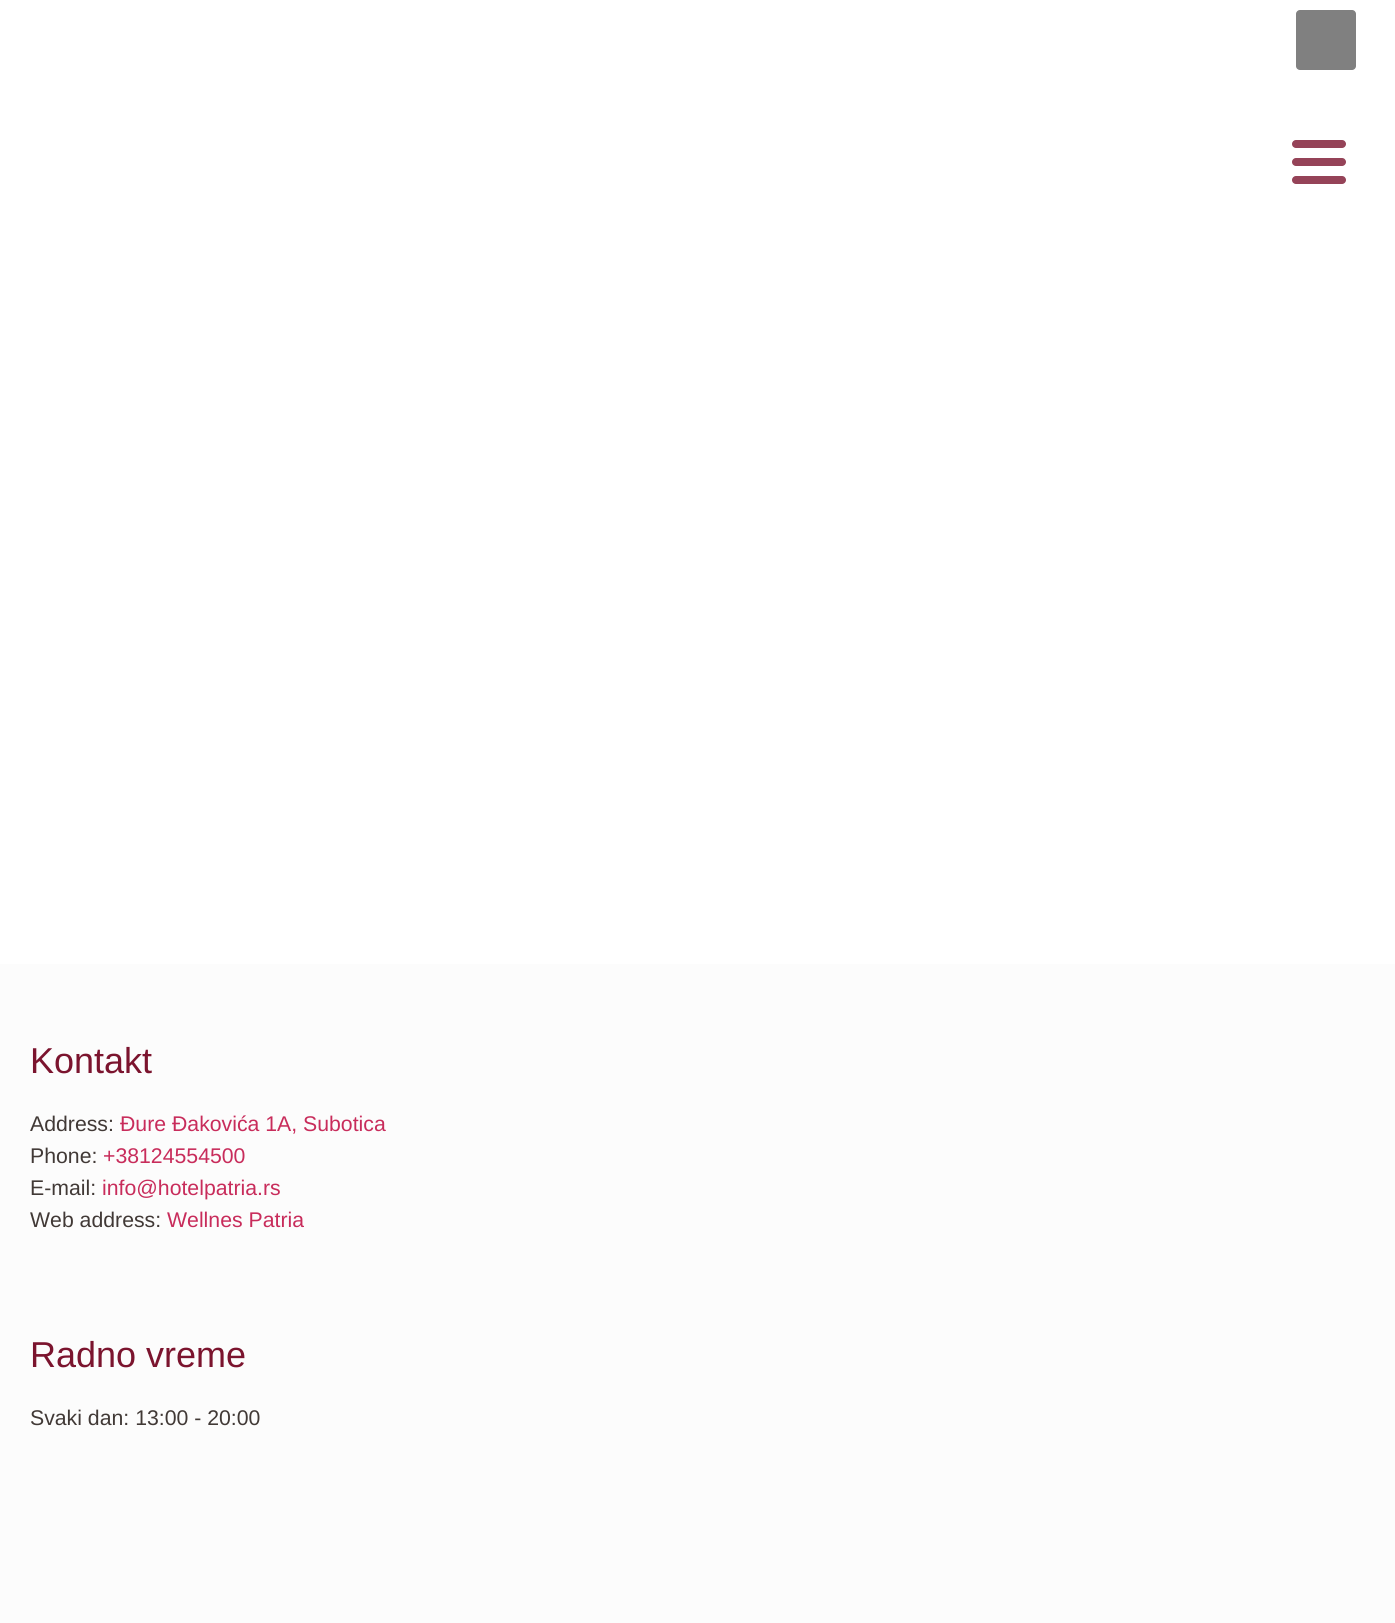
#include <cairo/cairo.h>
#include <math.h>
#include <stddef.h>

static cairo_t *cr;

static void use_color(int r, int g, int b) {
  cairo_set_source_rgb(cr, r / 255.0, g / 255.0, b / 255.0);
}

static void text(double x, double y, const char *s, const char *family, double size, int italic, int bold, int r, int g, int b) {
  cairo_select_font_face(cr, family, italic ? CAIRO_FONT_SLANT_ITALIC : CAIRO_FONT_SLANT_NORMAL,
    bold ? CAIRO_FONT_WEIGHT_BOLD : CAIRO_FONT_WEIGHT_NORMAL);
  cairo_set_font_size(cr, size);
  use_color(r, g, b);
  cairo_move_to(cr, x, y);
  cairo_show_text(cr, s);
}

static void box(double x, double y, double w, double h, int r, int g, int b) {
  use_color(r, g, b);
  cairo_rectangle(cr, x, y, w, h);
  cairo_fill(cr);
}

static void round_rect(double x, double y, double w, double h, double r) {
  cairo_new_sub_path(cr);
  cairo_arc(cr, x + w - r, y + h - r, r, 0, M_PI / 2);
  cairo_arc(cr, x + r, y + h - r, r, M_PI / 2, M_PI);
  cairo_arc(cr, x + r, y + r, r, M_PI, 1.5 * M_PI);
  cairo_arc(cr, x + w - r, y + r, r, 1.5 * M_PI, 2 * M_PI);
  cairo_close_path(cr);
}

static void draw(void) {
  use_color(255, 255, 255);
  cairo_paint(cr);
  use_color(128, 128, 128);
  round_rect(1296, 10, 60, 60, 4);
  cairo_fill(cr);
  use_color(149, 67, 88);
  round_rect(1292, 140, 54, 8, 4);
  cairo_fill(cr);
  round_rect(1292, 158, 54, 8, 4);
  cairo_fill(cr);
  round_rect(1292, 176, 54, 8, 4);
  cairo_fill(cr);
  box(0, 964, 1395, 659, 252, 252, 252);
  text(30, 1073, "Kontakt", "Liberation Sans", 36, 0, 0, 123, 20, 46);
  text(30, 1131, "Address:", "Liberation Sans", 21.25, 0, 0, 65, 57, 54);
  text(120, 1131, "Đure Đakovića 1A, Subotica", "Liberation Sans", 21.25, 0, 0, 200, 44, 91);
  text(30, 1163, "Phone:", "Liberation Sans", 21.25, 0, 0, 65, 57, 54);
  text(103, 1163, "+38124554500", "Liberation Sans", 21.25, 0, 0, 200, 44, 91);
  text(30, 1195, "E-mail:", "Liberation Sans", 21.25, 0, 0, 65, 57, 54);
  text(102, 1195, "info@hotelpatria.rs", "Liberation Sans", 21.25, 0, 0, 200, 44, 91);
  text(30, 1227, "Web address:", "Liberation Sans", 21.25, 0, 0, 65, 57, 54);
  text(167, 1227, "Wellnes Patria", "Liberation Sans", 21.25, 0, 0, 200, 44, 91);
  text(30, 1367, "Radno vreme", "Liberation Sans", 36, 0, 0, 123, 20, 46);
  text(30, 1425, "Svaki dan: 13:00 - 20:00", "Liberation Sans", 21.25, 0, 0, 65, 57, 54);
}

int main(void) {
  cairo_surface_t *surface = cairo_image_surface_create(CAIRO_FORMAT_RGB24, 1395, 1623);
  cr = cairo_create(surface);
  cairo_font_options_t *options = cairo_font_options_create();
  cairo_font_options_set_hint_metrics(options, CAIRO_HINT_METRICS_OFF);
  cairo_font_options_set_hint_style(options, CAIRO_HINT_STYLE_NONE);
  cairo_set_font_options(cr, options);
  cairo_set_miter_limit(cr, 4);
  draw();
  cairo_surface_write_to_png(surface, "out.png");
  cairo_font_options_destroy(options);
  cairo_destroy(cr);
  cairo_surface_destroy(surface);
  return 0;
}
